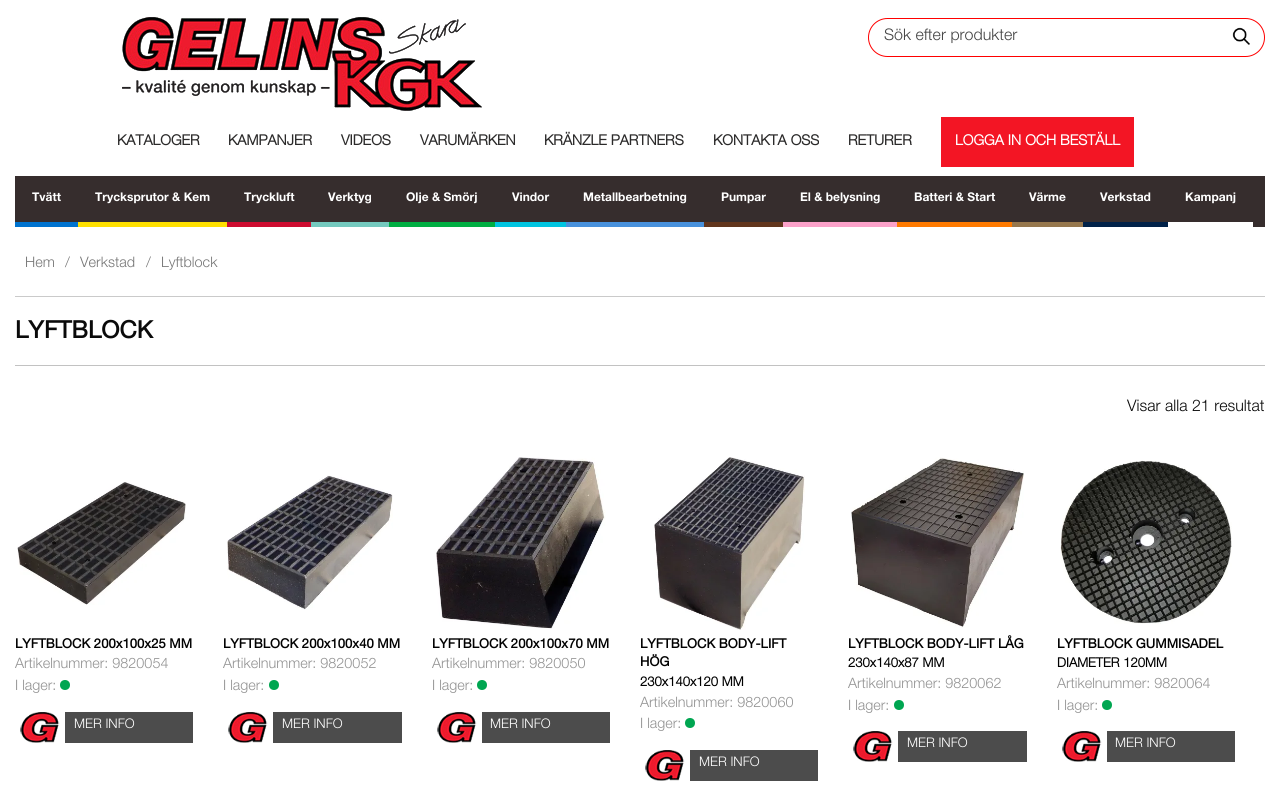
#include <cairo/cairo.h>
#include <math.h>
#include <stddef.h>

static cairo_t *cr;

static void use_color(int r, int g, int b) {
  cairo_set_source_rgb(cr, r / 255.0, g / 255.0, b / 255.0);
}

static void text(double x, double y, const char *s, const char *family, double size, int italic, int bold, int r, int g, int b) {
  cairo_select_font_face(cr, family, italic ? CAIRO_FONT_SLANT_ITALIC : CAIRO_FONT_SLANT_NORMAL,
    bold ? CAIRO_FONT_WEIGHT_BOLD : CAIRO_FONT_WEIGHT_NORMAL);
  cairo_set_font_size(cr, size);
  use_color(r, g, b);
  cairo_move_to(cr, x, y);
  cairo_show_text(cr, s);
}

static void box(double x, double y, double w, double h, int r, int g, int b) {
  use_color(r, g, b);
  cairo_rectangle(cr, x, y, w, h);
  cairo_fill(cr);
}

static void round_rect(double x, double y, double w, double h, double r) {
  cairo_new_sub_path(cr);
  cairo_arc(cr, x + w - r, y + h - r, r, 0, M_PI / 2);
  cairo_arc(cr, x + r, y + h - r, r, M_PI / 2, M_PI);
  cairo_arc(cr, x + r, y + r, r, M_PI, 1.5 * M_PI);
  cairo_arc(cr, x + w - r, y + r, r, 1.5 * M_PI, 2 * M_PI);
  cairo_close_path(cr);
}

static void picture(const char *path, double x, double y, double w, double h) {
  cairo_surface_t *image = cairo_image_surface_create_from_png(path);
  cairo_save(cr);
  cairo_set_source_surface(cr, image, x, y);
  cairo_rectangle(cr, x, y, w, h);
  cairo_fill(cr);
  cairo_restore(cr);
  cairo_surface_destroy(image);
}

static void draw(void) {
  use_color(255, 255, 255);
  cairo_paint(cr);
  picture("img_01.png", 122, 17, 360, 94);
  round_rect(868.5, 18.5, 396, 38, 19);
  use_color(255, 0, 0);
  cairo_set_line_width(cr, 1);
  cairo_stroke(cr);
  picture("img_02.png", 1232, 27, 18, 18);
  box(941, 117, 193, 50, 243, 21, 36);
  box(15, 176, 1250, 51, 54, 45, 45);
  box(15, 222, 63, 5, 0, 115, 207);
  box(78, 222, 149, 5, 255, 224, 0);
  box(227, 222, 84, 5, 204, 12, 47);
  box(311, 222, 78, 5, 116, 201, 190);
  box(389, 222, 106, 5, 0, 174, 66);
  box(495, 222, 71, 5, 0, 196, 224);
  box(566, 222, 138, 5, 72, 145, 220);
  box(704, 222, 79, 5, 97, 53, 29);
  box(783, 222, 114, 5, 252, 162, 202);
  box(897, 222, 115, 5, 255, 122, 0);
  box(1012, 222, 71, 5, 150, 119, 77);
  box(1083, 222, 85, 5, 0, 33, 72);
  box(1168, 222, 85, 5, 255, 255, 255);
  box(15, 296, 1250, 1, 202, 202, 202);
  box(15, 365, 1250, 1, 194, 194, 194);
  picture("img_03.png", 17, 482, 169, 123);
  use_color(0, 166, 81);
  cairo_arc(cr, 65, 685, 5, 0, 2 * M_PI);
  cairo_fill(cr);
  box(65, 712, 128, 31, 76, 76, 76);
  picture("img_04.png", 20, 712, 40, 31);
  picture("img_05.png", 227, 475, 166, 135);
  use_color(0, 166, 81);
  cairo_arc(cr, 274, 685, 5, 0, 2 * M_PI);
  cairo_fill(cr);
  box(273, 712, 129, 31, 76, 76, 76);
  picture("img_04.png", 228, 712, 40, 31);
  picture("img_06.png", 436, 457, 170, 172);
  use_color(0, 166, 81);
  cairo_arc(cr, 482, 685, 5, 0, 2 * M_PI);
  cairo_fill(cr);
  box(482, 712, 128, 31, 76, 76, 76);
  picture("img_04.png", 437, 712, 40, 31);
  picture("img_07.png", 654, 457, 151, 173);
  use_color(0, 166, 81);
  cairo_arc(cr, 690, 723, 5, 0, 2 * M_PI);
  cairo_fill(cr);
  box(690, 750, 128, 31, 76, 76, 76);
  picture("img_04.png", 645, 750, 40, 31);
  picture("img_08.png", 851, 457, 173, 171);
  use_color(0, 166, 81);
  cairo_arc(cr, 899, 705, 5, 0, 2 * M_PI);
  cairo_fill(cr);
  box(898, 731, 129, 31, 76, 76, 76);
  picture("img_04.png", 853, 731, 40, 31);
  picture("img_09.png", 1060, 460, 172, 164);
  use_color(0, 166, 81);
  cairo_arc(cr, 1107, 705, 5, 0, 2 * M_PI);
  cairo_fill(cr);
  box(1107, 731, 128, 31, 76, 76, 76);
  picture("img_04.png", 1062, 731, 40, 31);
  text(884, 40, "Sök efter produkter", "Helvetica Neue Light", 16, 0, 0, 68, 68, 68);
  text(117, 145, "KATALOGER", "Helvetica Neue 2", 14.4, 0, 1, 43, 42, 42);
  text(228, 145, "KAMPANJER", "Helvetica Neue 2", 14.4, 0, 1, 43, 42, 42);
  text(341, 145, "VIDEOS", "Helvetica Neue 2", 14.4, 0, 1, 43, 42, 42);
  text(420, 145, "VARUMÄRKEN", "Helvetica Neue 2", 14.4, 0, 1, 43, 42, 42);
  text(544, 145, "KRÄNZLE PARTNERS", "Helvetica Neue 2", 14.4, 0, 1, 43, 42, 42);
  text(713, 145, "KONTAKTA OSS", "Helvetica Neue 2", 14.4, 0, 1, 43, 42, 42);
  text(848, 145, "RETURER", "Helvetica Neue 2", 14.4, 0, 1, 43, 42, 42);
  text(955, 145, "LOGGA IN OCH BESTÄLL", "Helvetica Neue 2", 14.4, 0, 1, 255, 255, 255);
  text(32, 201, "Tvätt", "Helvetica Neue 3", 12, 0, 1, 255, 255, 255);
  text(95, 201, "Trycksprutor & Kem", "Helvetica Neue 3", 12, 0, 1, 255, 255, 255);
  text(244, 201, "Tryckluft", "Helvetica Neue 3", 12, 0, 1, 255, 255, 255);
  text(328, 201, "Verktyg", "Helvetica Neue 3", 12, 0, 1, 255, 255, 255);
  text(406, 201, "Olje & Smörj", "Helvetica Neue 3", 12, 0, 1, 255, 255, 255);
  text(512, 201, "Vindor", "Helvetica Neue 3", 12, 0, 1, 255, 255, 255);
  text(583, 201, "Metallbearbetning", "Helvetica Neue 3", 12, 0, 1, 255, 255, 255);
  text(721, 201, "Pumpar", "Helvetica Neue 3", 12, 0, 1, 255, 255, 255);
  text(800, 201, "El & belysning", "Helvetica Neue 3", 12, 0, 1, 255, 255, 255);
  text(914, 201, "Batteri & Start", "Helvetica Neue 3", 12, 0, 1, 255, 255, 255);
  text(1029, 201, "Värme", "Helvetica Neue 3", 12, 0, 1, 255, 255, 255);
  text(1100, 201, "Verkstad", "Helvetica Neue 3", 12, 0, 1, 255, 255, 255);
  text(1185, 201, "Kampanj", "Helvetica Neue 3", 12, 0, 1, 255, 255, 255);
  text(25, 267, "Hem", "Helvetica Neue Light", 14.5, 0, 0, 118, 118, 118);
  text(65, 267, "/", "Helvetica Neue Light", 14.5, 0, 0, 118, 118, 118);
  text(80, 267, "Verkstad", "Helvetica Neue Light", 14.5, 0, 0, 118, 118, 118);
  text(146, 267, "/", "Helvetica Neue Light", 14.5, 0, 0, 118, 118, 118);
  text(161, 267, "Lyftblock", "Helvetica Neue Light", 14.5, 0, 0, 118, 118, 118);
  text(15, 338, "LYFTBLOCK", "Helvetica Neue", 24, 0, 1, 10, 10, 10);
  text(1127, 411, "Visar alla 21 resultat", "Helvetica Neue Light", 16, 0, 0, 10, 10, 10);
  text(15, 648, "LYFTBLOCK 200x100x25 MM", "Helvetica Neue", 13.1, 0, 1, 1, 1, 1);
  text(15, 668, "Artikelnummer: 9820054", "Helvetica Neue Light", 14.4, 0, 0, 147, 147, 147);
  text(15, 690, "I lager:", "Helvetica Neue Light", 14.4, 0, 0, 147, 147, 147);
  text(74, 728, "MER INFO", "Helvetica Neue Light", 13.25, 0, 0, 255, 255, 255);
  text(223, 648, "LYFTBLOCK 200x100x40 MM", "Helvetica Neue", 13.1, 0, 1, 1, 1, 1);
  text(223, 668, "Artikelnummer: 9820052", "Helvetica Neue Light", 14.4, 0, 0, 147, 147, 147);
  text(223, 690, "I lager:", "Helvetica Neue Light", 14.4, 0, 0, 147, 147, 147);
  text(282, 728, "MER INFO", "Helvetica Neue Light", 13.25, 0, 0, 255, 255, 255);
  text(432, 648, "LYFTBLOCK 200x100x70 MM", "Helvetica Neue", 13.1, 0, 1, 1, 1, 1);
  text(432, 668, "Artikelnummer: 9820050", "Helvetica Neue Light", 14.4, 0, 0, 147, 147, 147);
  text(432, 690, "I lager:", "Helvetica Neue Light", 14.4, 0, 0, 147, 147, 147);
  text(490, 728, "MER INFO", "Helvetica Neue Light", 13.25, 0, 0, 255, 255, 255);
  text(640, 648, "LYFTBLOCK BODY-LIFT", "Helvetica Neue", 13.1, 0, 1, 1, 1, 1);
  text(640, 666, "HÖG", "Helvetica Neue", 13.1, 0, 1, 1, 1, 1);
  text(640, 686, "230x140x120 MM", "Helvetica Neue 2", 13.1, 0, 1, 1, 1, 1);
  text(640, 707, "Artikelnummer: 9820060", "Helvetica Neue Light", 14.4, 0, 0, 147, 147, 147);
  text(640, 728, "I lager:", "Helvetica Neue Light", 14.4, 0, 0, 147, 147, 147);
  text(699, 766, "MER INFO", "Helvetica Neue Light", 13.25, 0, 0, 255, 255, 255);
  text(848, 648, "LYFTBLOCK BODY-LIFT LÅG", "Helvetica Neue", 13.1, 0, 1, 1, 1, 1);
  text(848, 667, "230x140x87 MM", "Helvetica Neue 2", 13.1, 0, 1, 1, 1, 1);
  text(848, 688, "Artikelnummer: 9820062", "Helvetica Neue Light", 14.4, 0, 0, 147, 147, 147);
  text(848, 710, "I lager:", "Helvetica Neue Light", 14.4, 0, 0, 147, 147, 147);
  text(907, 747, "MER INFO", "Helvetica Neue Light", 13.25, 0, 0, 255, 255, 255);
  text(1057, 648, "LYFTBLOCK GUMMISADEL", "Helvetica Neue", 13.1, 0, 1, 1, 1, 1);
  text(1057, 667, "DIAMETER 120MM", "Helvetica Neue 2", 13.1, 0, 1, 1, 1, 1);
  text(1057, 688, "Artikelnummer: 9820064", "Helvetica Neue Light", 14.4, 0, 0, 147, 147, 147);
  text(1057, 710, "I lager:", "Helvetica Neue Light", 14.4, 0, 0, 147, 147, 147);
  text(1115, 747, "MER INFO", "Helvetica Neue Light", 13.25, 0, 0, 255, 255, 255);
}

int main(void) {
  cairo_surface_t *surface = cairo_image_surface_create(CAIRO_FORMAT_RGB24, 1280, 807);
  cr = cairo_create(surface);
  cairo_font_options_t *options = cairo_font_options_create();
  cairo_font_options_set_hint_metrics(options, CAIRO_HINT_METRICS_OFF);
  cairo_font_options_set_hint_style(options, CAIRO_HINT_STYLE_NONE);
  cairo_set_font_options(cr, options);
  cairo_set_miter_limit(cr, 4);
  draw();
  cairo_surface_write_to_png(surface, "out.png");
  cairo_font_options_destroy(options);
  cairo_destroy(cr);
  cairo_surface_destroy(surface);
  return 0;
}
